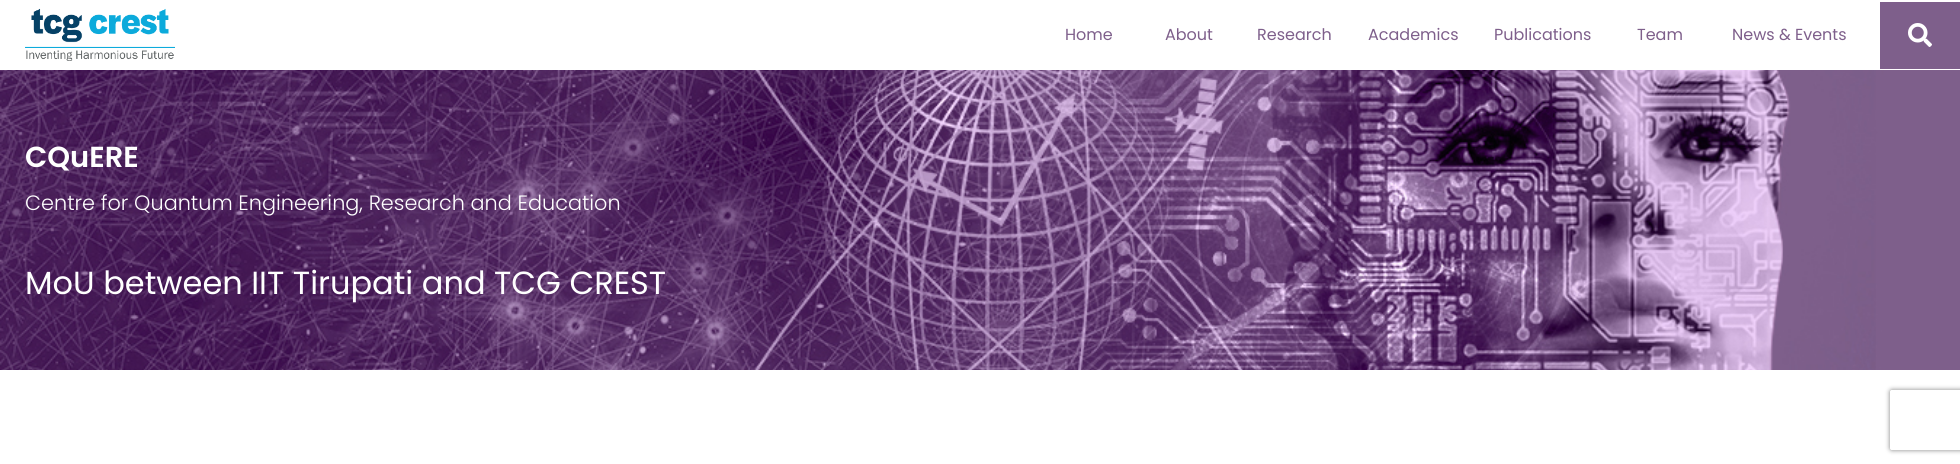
#include <cairo/cairo.h>
#include <math.h>
#include <stddef.h>

static cairo_t *cr;

static void use_color(int r, int g, int b) {
  cairo_set_source_rgb(cr, r / 255.0, g / 255.0, b / 255.0);
}

static void text(double x, double y, const char *s, const char *family, double size, int italic, int bold, int r, int g, int b) {
  cairo_select_font_face(cr, family, italic ? CAIRO_FONT_SLANT_ITALIC : CAIRO_FONT_SLANT_NORMAL,
    bold ? CAIRO_FONT_WEIGHT_BOLD : CAIRO_FONT_WEIGHT_NORMAL);
  cairo_set_font_size(cr, size);
  use_color(r, g, b);
  cairo_move_to(cr, x, y);
  cairo_show_text(cr, s);
}

static void box(double x, double y, double w, double h, int r, int g, int b) {
  use_color(r, g, b);
  cairo_rectangle(cr, x, y, w, h);
  cairo_fill(cr);
}

static void round_rect(double x, double y, double w, double h, double r) {
  cairo_new_sub_path(cr);
  cairo_arc(cr, x + w - r, y + h - r, r, 0, M_PI / 2);
  cairo_arc(cr, x + r, y + h - r, r, M_PI / 2, M_PI);
  cairo_arc(cr, x + r, y + r, r, M_PI, 1.5 * M_PI);
  cairo_arc(cr, x + w - r, y + r, r, 1.5 * M_PI, 2 * M_PI);
  cairo_close_path(cr);
}

static void shadow(double x, double y, double w, double h, double r, double blur, double alpha) {
  cairo_push_group_with_content(cr, CAIRO_CONTENT_ALPHA);
  cairo_set_operator(cr, CAIRO_OPERATOR_SOURCE);
  for (int i = 15; i >= -15 && fmin(w, h) + blur * i / 3 > 0; i -= 2) {
    double e = blur * i / 6;
    cairo_set_source_rgba(cr, 0, 0, 0, alpha * erfc((i - 1) / 8.5) / 2);
    round_rect(x - e, y - e, w + 2 * e, h + 2 * e, fmax(0, fmin(r + e + blur * .6, fmin(w, h) / 2 + e)));
    cairo_fill(cr);
  }
  cairo_pattern_t *soft = cairo_pop_group(cr);
  cairo_mask(cr, soft);
  cairo_pattern_destroy(soft);
}

static void picture(const char *path, double x, double y, double w, double h) {
  cairo_surface_t *image = cairo_image_surface_create_from_png(path);
  cairo_save(cr);
  cairo_set_source_surface(cr, image, x, y);
  cairo_rectangle(cr, x, y, w, h);
  cairo_fill(cr);
  cairo_restore(cr);
  cairo_surface_destroy(image);
}

static void draw(void) {
  use_color(255, 255, 255);
  cairo_paint(cr);
  picture("img_01.png", 25, 8, 150, 53);
  box(1880, 2, 80, 67, 126, 95, 139);
  picture("img_02.png", 1908, 23, 24, 24);
  picture("img_03.png", 0, 70, 1960, 300);
  cairo_save(cr);
  cairo_set_fill_rule(cr, CAIRO_FILL_RULE_EVEN_ODD);
  cairo_new_path(cr);
  cairo_move_to(cr, 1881, 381);
  cairo_line_to(cr, 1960, 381);
  cairo_line_to(cr, 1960, 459);
  cairo_line_to(cr, 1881, 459);
  cairo_close_path(cr);
  cairo_move_to(cr, 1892, 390);
  cairo_line_to(cr, 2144, 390);
  cairo_curve_to(cr, 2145, 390, 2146, 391, 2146, 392);
  cairo_line_to(cr, 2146, 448);
  cairo_curve_to(cr, 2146, 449, 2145, 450, 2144, 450);
  cairo_line_to(cr, 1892, 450);
  cairo_curve_to(cr, 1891, 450, 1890, 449, 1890, 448);
  cairo_line_to(cr, 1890, 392);
  cairo_curve_to(cr, 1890, 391, 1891, 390, 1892, 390);
  cairo_close_path(cr);
  cairo_clip(cr);
  use_color(128, 128, 128);
  shadow(1890, 390, 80, 60, 2, 2.5, 1);
  cairo_restore(cr);
  text(1065, 40, "Home", "Poppins", 16, 0, 0, 126, 95, 139);
  text(1165, 40, "About", "Poppins", 16, 0, 0, 126, 95, 139);
  text(1257, 40, "Research", "Poppins", 16, 0, 0, 126, 95, 139);
  text(1368, 40, "Academics", "Poppins", 16, 0, 0, 126, 95, 139);
  text(1494, 40, "Publications", "Poppins", 16, 0, 0, 126, 95, 139);
  text(1637, 40, "Team", "Poppins", 16, 0, 0, 126, 95, 139);
  text(1732, 40, "News & Events", "Poppins", 16, 0, 0, 126, 95, 139);
  text(25, 167, "CQuERE", "Poppins SemiBold", 29, 0, 0, 255, 255, 255);
  text(25, 210, "Centre for Quantum Engineering, Research and Education", "Poppins Light", 20.8, 0, 0, 255, 255, 255);
  text(25, 294, "MoU between IIT Tirupati and TCG CREST", "Poppins", 32, 0, 0, 255, 255, 255);
}

int main(void) {
  cairo_surface_t *surface = cairo_image_surface_create(CAIRO_FORMAT_RGB24, 1960, 464);
  cr = cairo_create(surface);
  cairo_font_options_t *options = cairo_font_options_create();
  cairo_font_options_set_hint_metrics(options, CAIRO_HINT_METRICS_OFF);
  cairo_font_options_set_hint_style(options, CAIRO_HINT_STYLE_NONE);
  cairo_set_font_options(cr, options);
  cairo_set_miter_limit(cr, 4);
  draw();
  cairo_surface_write_to_png(surface, "out.png");
  cairo_font_options_destroy(options);
  cairo_destroy(cr);
  cairo_surface_destroy(surface);
  return 0;
}
